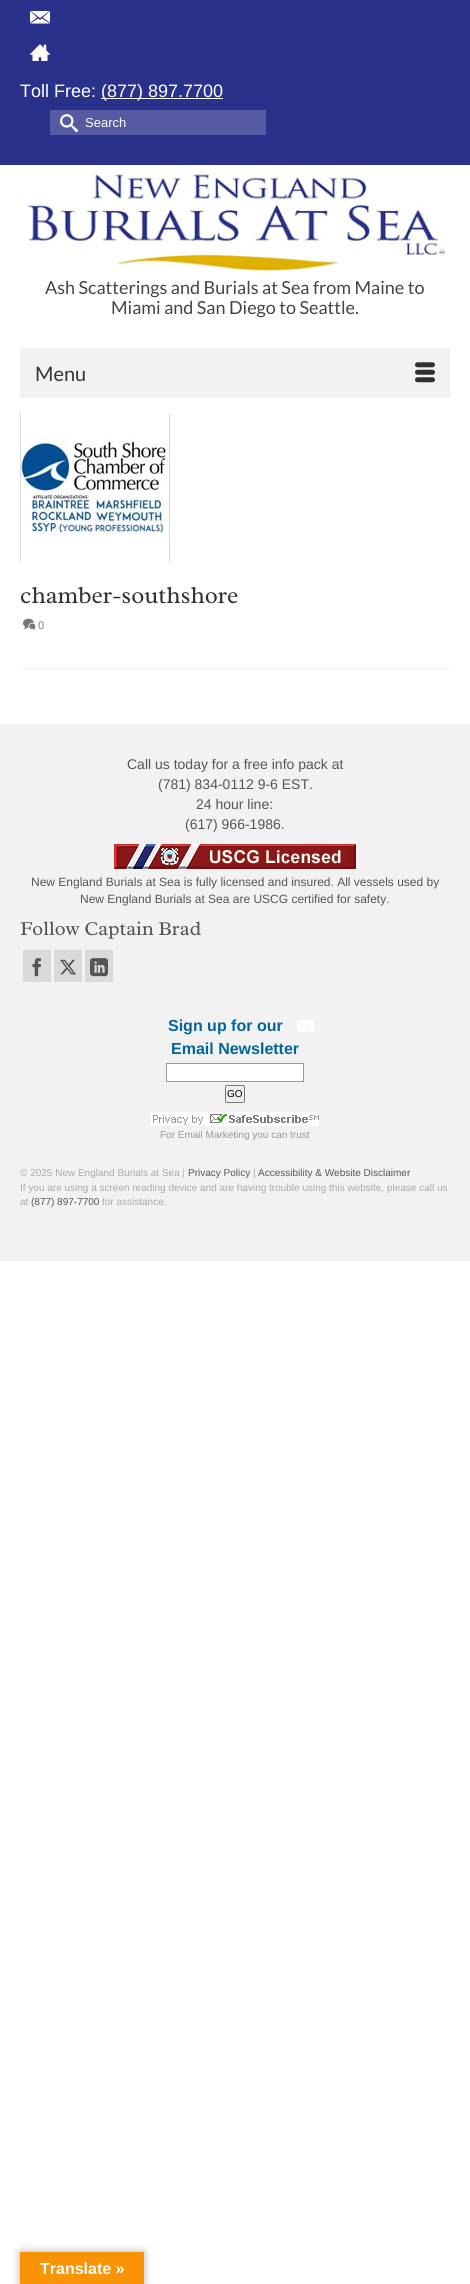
#include <cairo/cairo.h>
#include <math.h>
#include <stddef.h>

static cairo_t *cr;

static void use_color(int r, int g, int b) {
  cairo_set_source_rgb(cr, r / 255.0, g / 255.0, b / 255.0);
}

static void text(double x, double y, const char *s, const char *family, double size, int italic, int bold, int r, int g, int b) {
  cairo_select_font_face(cr, family, italic ? CAIRO_FONT_SLANT_ITALIC : CAIRO_FONT_SLANT_NORMAL,
    bold ? CAIRO_FONT_WEIGHT_BOLD : CAIRO_FONT_WEIGHT_NORMAL);
  cairo_set_font_size(cr, size);
  use_color(r, g, b);
  cairo_move_to(cr, x, y);
  cairo_show_text(cr, s);
}

static void box(double x, double y, double w, double h, int r, int g, int b) {
  use_color(r, g, b);
  cairo_rectangle(cr, x, y, w, h);
  cairo_fill(cr);
}

static void round_rect(double x, double y, double w, double h, double r) {
  cairo_new_sub_path(cr);
  cairo_arc(cr, x + w - r, y + h - r, r, 0, M_PI / 2);
  cairo_arc(cr, x + r, y + h - r, r, M_PI / 2, M_PI);
  cairo_arc(cr, x + r, y + r, r, M_PI, 1.5 * M_PI);
  cairo_arc(cr, x + w - r, y + r, r, 1.5 * M_PI, 2 * M_PI);
  cairo_close_path(cr);
}

static void shadow(double x, double y, double w, double h, double r, double blur, double alpha) {
  cairo_push_group_with_content(cr, CAIRO_CONTENT_ALPHA);
  cairo_set_operator(cr, CAIRO_OPERATOR_SOURCE);
  for (int i = 15; i >= -15 && fmin(w, h) + blur * i / 3 > 0; i -= 2) {
    double e = blur * i / 6;
    cairo_set_source_rgba(cr, 0, 0, 0, alpha * erfc((i - 1) / 8.5) / 2);
    round_rect(x - e, y - e, w + 2 * e, h + 2 * e, fmax(0, fmin(r + e + blur * .6, fmin(w, h) / 2 + e)));
    cairo_fill(cr);
  }
  cairo_pattern_t *soft = cairo_pop_group(cr);
  cairo_mask(cr, soft);
  cairo_pattern_destroy(soft);
}

static void picture(const char *path, double x, double y, double w, double h) {
  cairo_surface_t *image = cairo_image_surface_create_from_png(path);
  cairo_save(cr);
  cairo_set_source_surface(cr, image, x, y);
  cairo_rectangle(cr, x, y, w, h);
  cairo_fill(cr);
  cairo_restore(cr);
  cairo_surface_destroy(image);
}

static void draw(void) {
  use_color(255, 255, 255);
  cairo_paint(cr);
  box(0, 0, 470, 165, 42, 49, 139);
  picture("img_01.png", 30, 11, 20, 13);
  picture("img_02.png", 30, 44, 20, 17);
  box(101, 98, 122, 1, 255, 255, 255);
  box(50, 110, 216, 25, 85, 90, 162);
  picture("img_03.png", 60, 114, 18, 19);
  picture("img_04.png", 27, 174, 419, 98);
  box(20, 348, 430, 50, 242, 242, 242);
  picture("img_05.png", 415, 362, 20, 21);
  picture("img_06.png", 20, 413, 150, 149);
  picture("img_07.png", 23, 618, 13, 12);
  box(20, 668, 430, 1, 242, 242, 242);
  box(0, 724, 470, 537, 242, 242, 242);
  picture("img_08.png", 114, 844, 242, 25);
  box(23, 950, 28, 32, 218, 218, 218);
  picture("img_09.png", 32, 958, 9, 19);
  box(54, 950, 28, 32, 218, 218, 218);
  picture("img_10.png", 60, 959, 16, 16);
  box(85, 950, 28, 32, 218, 218, 218);
  picture("img_11.png", 90, 958, 18, 19);
  picture("img_12.png", 297, 1020, 17, 12);
  use_color(255, 255, 255);
  cairo_rectangle(cr, 166.5, 1063.5, 137, 18);
  cairo_fill_preserve(cr);
  use_color(153, 153, 153);
  cairo_set_line_width(cr, 1);
  cairo_stroke(cr);
  use_color(239, 239, 239);
  round_rect(225.5, 1085.5, 19, 17, 1.5);
  cairo_fill_preserve(cr);
  use_color(118, 118, 118);
  cairo_stroke(cr);
  picture("img_13.png", 151, 1112, 168, 14);
  use_color(0, 0, 0);
  shadow(20, 2252, 124, 32, 0, 4.5, 0.3);
  box(20, 2252, 124, 32, 248, 148, 6);
  text(20, 97, "Toll Free:", "Liberation Sans", 18, 0, 0, 255, 255, 255);
  text(101, 97, "(877) 897.7700", "Liberation Sans", 18, 0, 0, 255, 255, 255);
  text(85, 127, "Search", "Liberation Sans", 13, 0, 0, 255, 255, 255);
  text(45, 294, "Ash Scatterings and Burials at Sea from Maine to", "Lato", 18, 0, 0, 68, 68, 68);
  text(111, 314, "Miami and San Diego to Seattle.", "Lato", 18, 0, 0, 68, 68, 68);
  text(35, 381, "Menu", "Lato", 20, 0, 0, 51, 51, 51);
  text(20, 603, "chamber-southshore", "Radley", 24, 0, 0, 51, 51, 51);
  text(38, 629, "0", "Liberation Sans", 11, 0, 0, 119, 119, 119);
  text(127, 769, "Call us today for a free info pack at", "Liberation Sans", 14, 0, 0, 85, 85, 85);
  text(158, 789, "(781) 834-0112 9-6 EST.", "Liberation Sans", 14, 0, 0, 85, 85, 85);
  text(196, 809, "24 hour line:", "Liberation Sans", 14, 0, 0, 85, 85, 85);
  text(185, 829, "(617) 966-1986.", "Liberation Sans", 14, 0, 0, 85, 85, 85);
  text(31, 886, "New England Burials at Sea is fully licensed and insured. All vessels used by", "Liberation Sans", 12, 0, 0, 85, 85, 85);
  text(80, 903, "New England Burials at Sea are USCG certified for safety.", "Liberation Sans", 12, 0, 0, 85, 85, 85);
  text(20, 935, "Follow Captain Brad", "Radley", 20, 0, 0, 85, 85, 85);
  text(168, 1031, "Sign up for our", "Liberation Sans", 16, 0, 1, 0, 102, 153);
  text(171, 1054, "Email Newsletter", "Liberation Sans", 16, 0, 1, 0, 102, 153);
  text(227, 1097, "GO", "Liberation Sans", 10, 0, 0, 0, 0, 0);
  text(160, 1138, "For Email Marketing you can trust", "Liberation Sans", 10, 0, 0, 153, 153, 153);
  text(20, 1176, "© 2025 New England Burials at Sea |", "Liberation Sans", 10, 0, 0, 170, 170, 170);
  text(188, 1176, "Privacy Policy", "Liberation Sans", 10, 0, 0, 85, 85, 85);
  text(253, 1176, "|", "Liberation Sans", 10, 0, 0, 170, 170, 170);
  text(258, 1176, "Accessibility & Website Disclaimer", "Liberation Sans", 10, 0, 0, 85, 85, 85);
  text(20, 1191, "If you are using a screen reading device and are having trouble using this website, please call us", "Liberation Sans", 10, 0, 0, 170, 170, 170);
  text(20, 1205, "at", "Liberation Sans", 10, 0, 0, 170, 170, 170);
  text(31, 1205, "(877) 897-7700", "Liberation Sans", 10, 0, 0, 85, 85, 85);
  text(102, 1205, "for assistance.", "Liberation Sans", 10, 0, 0, 170, 170, 170);
  text(40, 2274, "Translate »", "Liberation Sans", 16, 0, 1, 255, 255, 255);
}

int main(void) {
  cairo_surface_t *surface = cairo_image_surface_create(CAIRO_FORMAT_RGB24, 470, 2284);
  cr = cairo_create(surface);
  cairo_font_options_t *options = cairo_font_options_create();
  cairo_font_options_set_hint_metrics(options, CAIRO_HINT_METRICS_OFF);
  cairo_font_options_set_hint_style(options, CAIRO_HINT_STYLE_NONE);
  cairo_set_font_options(cr, options);
  cairo_set_miter_limit(cr, 4);
  draw();
  cairo_surface_write_to_png(surface, "out.png");
  cairo_font_options_destroy(options);
  cairo_destroy(cr);
  cairo_surface_destroy(surface);
  return 0;
}
